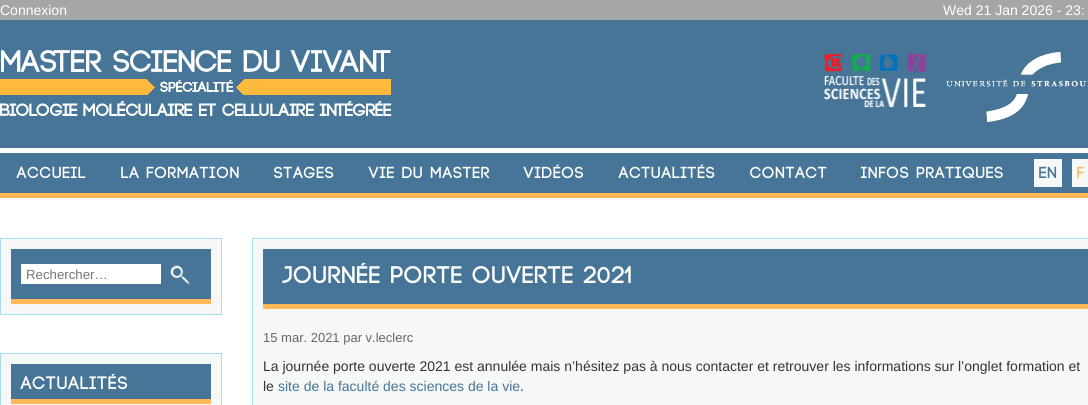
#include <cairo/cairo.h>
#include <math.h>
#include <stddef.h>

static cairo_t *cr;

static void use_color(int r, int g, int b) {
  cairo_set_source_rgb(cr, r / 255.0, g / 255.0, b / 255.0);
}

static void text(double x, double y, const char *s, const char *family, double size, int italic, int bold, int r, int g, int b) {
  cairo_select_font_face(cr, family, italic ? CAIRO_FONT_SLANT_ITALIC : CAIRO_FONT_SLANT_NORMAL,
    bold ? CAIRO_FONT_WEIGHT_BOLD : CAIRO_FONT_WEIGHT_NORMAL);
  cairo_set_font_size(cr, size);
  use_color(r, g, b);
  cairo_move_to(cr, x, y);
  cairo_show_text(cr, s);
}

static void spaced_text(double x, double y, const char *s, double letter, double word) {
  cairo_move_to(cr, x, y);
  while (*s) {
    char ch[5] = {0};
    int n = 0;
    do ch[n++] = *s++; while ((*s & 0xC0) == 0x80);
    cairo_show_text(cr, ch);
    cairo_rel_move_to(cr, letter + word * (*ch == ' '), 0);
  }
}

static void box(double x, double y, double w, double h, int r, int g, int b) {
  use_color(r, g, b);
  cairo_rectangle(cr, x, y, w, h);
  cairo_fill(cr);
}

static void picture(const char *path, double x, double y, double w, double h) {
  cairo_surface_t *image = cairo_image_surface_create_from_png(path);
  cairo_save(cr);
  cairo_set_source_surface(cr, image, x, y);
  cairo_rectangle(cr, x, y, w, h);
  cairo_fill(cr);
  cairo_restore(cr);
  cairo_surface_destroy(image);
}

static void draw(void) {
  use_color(255, 255, 255);
  cairo_paint(cr);
  box(0, 20, 1088, 173, 71, 117, 151);
  box(0, 0, 1088, 20, 165, 167, 166);
  picture("img_01.png", 0, 50, 392, 66);
  picture("img_02.png", 823, 53, 104, 55);
  picture("img_03.png", 946, 52, 142, 70);
  box(0, 148, 1088, 5, 255, 255, 255);
  box(0, 193, 1088, 5, 255, 184, 86);
  box(1034, 159, 28, 28, 246, 248, 247);
  box(1072, 159, 16, 28, 246, 248, 247);
  cairo_rectangle(cr, 0.5, 238.5, 221, 76);
  cairo_fill_preserve(cr);
  use_color(169, 221, 240);
  cairo_set_line_width(cr, 1);
  cairo_stroke(cr);
  box(11, 249, 200, 50, 71, 117, 151);
  box(11, 299, 200, 5, 255, 184, 86);
  box(21, 264, 140, 20, 255, 255, 255);
  picture("img_04.png", 170, 264, 20, 21);
  use_color(246, 248, 247);
  cairo_rectangle(cr, 0.5, 353.5, 221, 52);
  cairo_fill_preserve(cr);
  use_color(169, 221, 240);
  cairo_stroke(cr);
  box(11, 364, 200, 35, 71, 117, 151);
  box(11, 399, 200, 5, 255, 184, 86);
  use_color(246, 248, 247);
  cairo_rectangle(cr, 252.5, 238.5, 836, 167);
  cairo_fill_preserve(cr);
  use_color(169, 221, 240);
  cairo_stroke(cr);
  box(263, 249, 825, 55, 71, 117, 151);
  box(263, 304, 825, 5, 255, 184, 86);
  text(0, 15, "Connexion", "Liberation Sans", 14, 0, 0, 255, 255, 255);
  text(943, 15, "Wed 21 Jan 2026 - 23:", "Liberation Sans", 14, 0, 0, 255, 255, 255);
  cairo_select_font_face(cr, "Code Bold", CAIRO_FONT_SLANT_NORMAL, CAIRO_FONT_WEIGHT_BOLD);
  cairo_set_font_size(cr, 16);
  spaced_text(17, 178, "ACCUEIL", 1, 0);
  spaced_text(121, 178, "LA FORMATION", 1, 0);
  spaced_text(274, 178, "STAGES", 1, 0);
  spaced_text(369, 178, "VIE DU MASTER", 1, 0);
  spaced_text(524, 178, "VIDÉOS", 1, 0);
  spaced_text(619, 178, "ACTUALITÉS", 1, 0);
  spaced_text(750, 178, "CONTACT", 1, 0);
  spaced_text(861, 178, "INFOS PRATIQUES", 1, 0);
  use_color(71, 117, 151);
  spaced_text(1039, 178, "EN", 1, 0);
  use_color(255, 184, 86);
  spaced_text(1077, 178, "F", 1, 0);
  text(26, 279, "Rechercher…", "Liberation Sans", 13.25, 0, 0, 117, 117, 117);
  cairo_select_font_face(cr, "Code Bold", CAIRO_FONT_SLANT_NORMAL, CAIRO_FONT_WEIGHT_BOLD);
  cairo_set_font_size(cr, 18);
  use_color(255, 255, 255);
  spaced_text(21, 389, "ACTUALITÉS", 1, 0);
  cairo_set_font_size(cr, 24);
  spaced_text(283, 283, "JOURNÉE PORTE OUVERTE 2021", 1, 0);
  text(263, 342, "15 mar. 2021 par v.leclerc", "Liberation Sans", 13, 0, 0, 102, 102, 102);
  text(263, 371, "La journée porte ouverte 2021 est annulée mais n’hésitez pas à nous contacter et retrouver les informations sur l’onglet formation et", "Liberation Sans", 14, 0, 0, 51, 51, 51);
  text(263, 391, "le", "Liberation Sans", 14, 0, 0, 51, 51, 51);
  text(278, 391, "site de la faculté des sciences de la vie", "Liberation Sans", 14, 0, 0, 71, 117, 151);
  text(520, 391, ".", "Liberation Sans", 14, 0, 0, 51, 51, 51);
}

int main(void) {
  cairo_surface_t *surface = cairo_image_surface_create(CAIRO_FORMAT_RGB24, 1088, 405);
  cr = cairo_create(surface);
  cairo_font_options_t *options = cairo_font_options_create();
  cairo_font_options_set_hint_metrics(options, CAIRO_HINT_METRICS_OFF);
  cairo_font_options_set_hint_style(options, CAIRO_HINT_STYLE_NONE);
  cairo_set_font_options(cr, options);
  cairo_set_miter_limit(cr, 4);
  draw();
  cairo_surface_write_to_png(surface, "out.png");
  cairo_font_options_destroy(options);
  cairo_destroy(cr);
  cairo_surface_destroy(surface);
  return 0;
}
